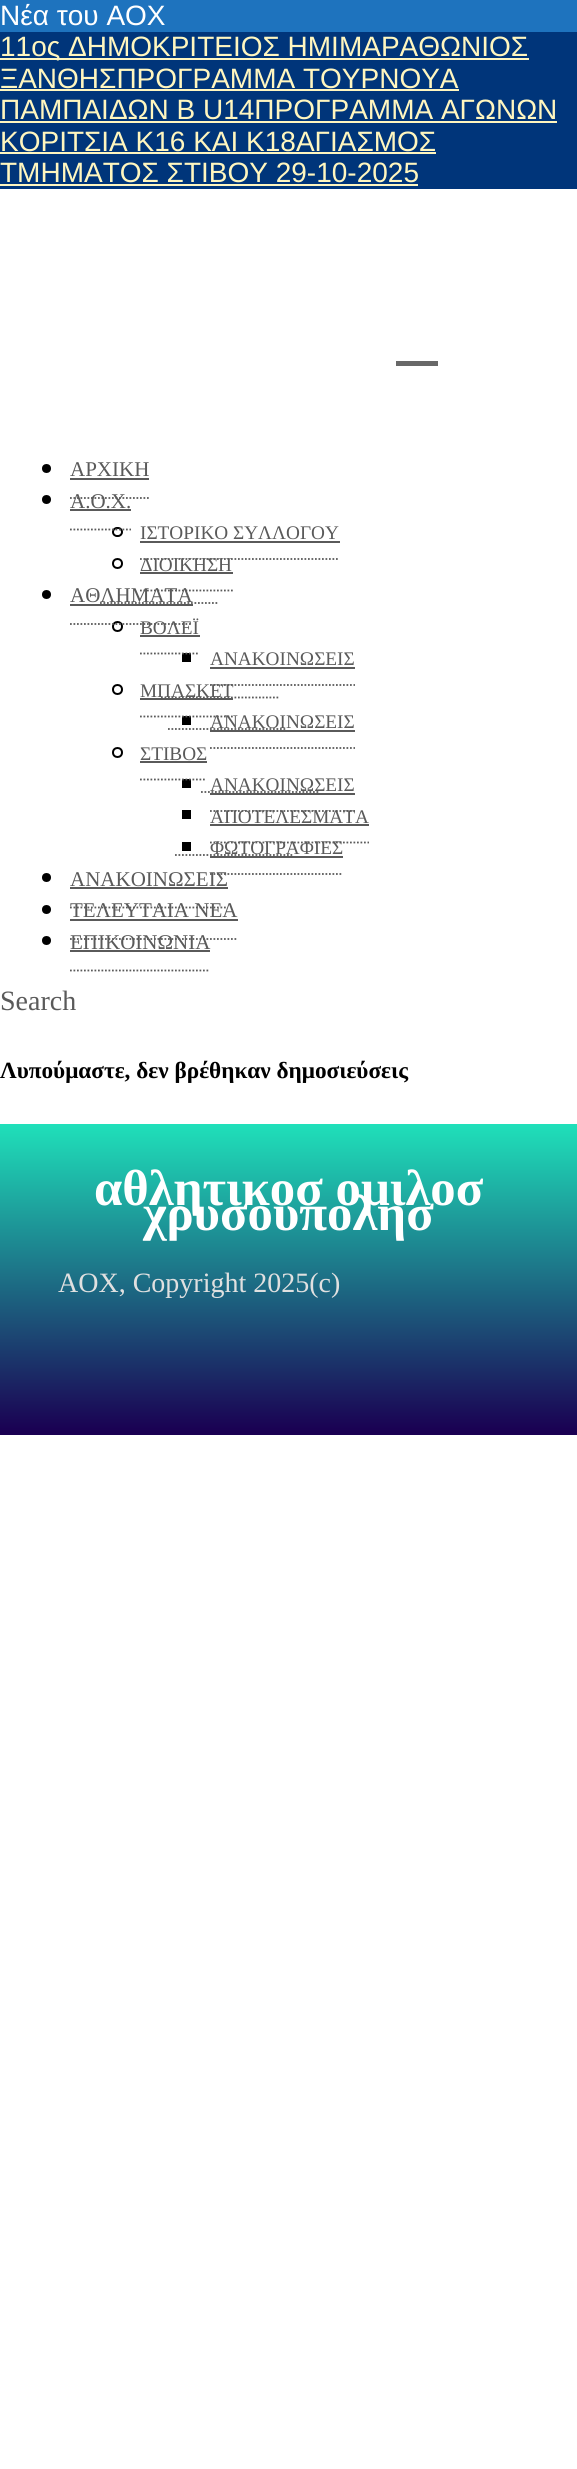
#include <cairo/cairo.h>
#include <math.h>
#include <stddef.h>

static cairo_t *cr;

static void use_color(int r, int g, int b) {
  cairo_set_source_rgb(cr, r / 255.0, g / 255.0, b / 255.0);
}

static void text(double x, double y, const char *s, const char *family, double size, int italic, int bold, int r, int g, int b) {
  cairo_select_font_face(cr, family, italic ? CAIRO_FONT_SLANT_ITALIC : CAIRO_FONT_SLANT_NORMAL,
    bold ? CAIRO_FONT_WEIGHT_BOLD : CAIRO_FONT_WEIGHT_NORMAL);
  cairo_set_font_size(cr, size);
  use_color(r, g, b);
  cairo_move_to(cr, x, y);
  cairo_show_text(cr, s);
}

static void box(double x, double y, double w, double h, int r, int g, int b) {
  use_color(r, g, b);
  cairo_rectangle(cr, x, y, w, h);
  cairo_fill(cr);
}

static void round_rect(double x, double y, double w, double h, double r) {
  cairo_new_sub_path(cr);
  cairo_arc(cr, x + w - r, y + h - r, r, 0, M_PI / 2);
  cairo_arc(cr, x + r, y + h - r, r, M_PI / 2, M_PI);
  cairo_arc(cr, x + r, y + r, r, M_PI, 1.5 * M_PI);
  cairo_arc(cr, x + w - r, y + r, r, 1.5 * M_PI, 2 * M_PI);
  cairo_close_path(cr);
}

static void draw(void) {
  cairo_pattern_t *gradient;
  use_color(255, 255, 255);
  cairo_paint(cr);
  box(0, 0, 577, 32, 30, 115, 190);
  box(0, 32, 577, 157, 0, 53, 122);
  box(0, 58, 529, 2, 255, 246, 191);
  box(0, 89, 459, 2, 255, 246, 191);
  box(0, 121, 557, 2, 255, 246, 191);
  box(0, 152, 436, 2, 255, 246, 191);
  box(0, 184, 418, 2, 255, 246, 191);
  box(396, 361, 42, 5, 104, 104, 104);
  use_color(0, 0, 0);
  cairo_arc(cr, 46.5, 468.5, 4.5, 0, 2 * M_PI);
  cairo_fill(cr);
  cairo_new_path(cr);
  cairo_move_to(cr, 70, 498);
  cairo_line_to(cr, 149, 498);
  use_color(90, 90, 90);
  cairo_set_line_width(cr, 1.8);
  cairo_set_dash(cr, (double[]){1.75, 1.75}, 2, 0);
  cairo_stroke(cr);
  box(70, 478, 79, 2, 90, 90, 90);
  use_color(0, 0, 0);
  cairo_arc(cr, 46.5, 499.5, 4.5, 0, 2 * M_PI);
  cairo_fill(cr);
  round_rect(113, 528, 9, 8, 4);
  cairo_set_line_width(cr, 2);
  cairo_set_dash(cr, NULL, 0, 0);
  cairo_stroke(cr);
  cairo_new_path(cr);
  cairo_move_to(cr, 70, 529.5);
  cairo_line_to(cr, 131, 529.5);
  use_color(90, 90, 90);
  cairo_set_line_width(cr, 1.8);
  cairo_set_dash(cr, (double[]){1.75, 1.75}, 2, 0);
  cairo_stroke(cr);
  cairo_new_path(cr);
  cairo_move_to(cr, 100, 603);
  cairo_line_to(cr, 219, 603);
  cairo_stroke(cr);
  box(70, 509, 61, 2, 90, 90, 90);
  cairo_new_path(cr);
  cairo_move_to(cr, 140, 559);
  cairo_line_to(cr, 339.5, 559);
  cairo_stroke(cr);
  box(140, 541, 200, 2, 90, 90, 90);
  cairo_arc(cr, 117.5, 563.5, 4.5, 0, 2 * M_PI);
  use_color(0, 0, 0);
  cairo_set_line_width(cr, 2);
  cairo_set_dash(cr, NULL, 0, 0);
  cairo_stroke(cr);
  cairo_new_path(cr);
  cairo_move_to(cr, 140, 590.5);
  cairo_line_to(cr, 233, 590.5);
  use_color(90, 90, 90);
  cairo_set_line_width(cr, 1.8);
  cairo_set_dash(cr, (double[]){1.75, 1.75}, 2, 0);
  cairo_stroke(cr);
  box(140, 572, 93, 2, 90, 90, 90);
  use_color(0, 0, 0);
  cairo_arc(cr, 46.5, 594.5, 4.5, 0, 2 * M_PI);
  cairo_fill(cr);
  cairo_arc(cr, 117.5, 626.5, 4.5, 0, 2 * M_PI);
  cairo_set_line_width(cr, 2);
  cairo_set_dash(cr, NULL, 0, 0);
  cairo_stroke(cr);
  cairo_new_path(cr);
  cairo_move_to(cr, 70, 624);
  cairo_line_to(cr, 192.5, 624);
  use_color(90, 90, 90);
  cairo_set_line_width(cr, 1.8);
  cairo_set_dash(cr, (double[]){1.75, 1.75}, 2, 0);
  cairo_stroke(cr);
  cairo_new_path(cr);
  cairo_move_to(cr, 161, 697.5);
  cairo_line_to(cr, 280, 697.5);
  cairo_stroke(cr);
  box(70, 604, 123, 2, 90, 90, 90);
  box(182, 653, 9, 9, 0, 0, 0);
  cairo_new_path(cr);
  cairo_move_to(cr, 140, 653.5);
  cairo_line_to(cr, 199.5, 653.5);
  use_color(90, 90, 90);
  cairo_stroke(cr);
  cairo_new_path(cr);
  cairo_move_to(cr, 168, 729);
  cairo_line_to(cr, 287, 729);
  cairo_stroke(cr);
  box(140, 635, 60, 2, 90, 90, 90);
  cairo_new_path(cr);
  cairo_move_to(cr, 210, 685);
  cairo_line_to(cr, 355, 685);
  cairo_stroke(cr);
  box(210, 667, 145, 2, 90, 90, 90);
  cairo_arc(cr, 117.5, 689.5, 4.5, 0, 2 * M_PI);
  use_color(0, 0, 0);
  cairo_set_line_width(cr, 2);
  cairo_set_dash(cr, NULL, 0, 0);
  cairo_stroke(cr);
  box(182, 716, 9, 9, 0, 0, 0);
  cairo_new_path(cr);
  cairo_move_to(cr, 140, 716.5);
  cairo_line_to(cr, 233, 716.5);
  use_color(90, 90, 90);
  cairo_set_line_width(cr, 1.8);
  cairo_set_dash(cr, (double[]){1.75, 1.75}, 2, 0);
  cairo_stroke(cr);
  cairo_new_path(cr);
  cairo_move_to(cr, 201, 792);
  cairo_line_to(cr, 320, 792);
  cairo_stroke(cr);
  box(140, 698, 93, 2, 90, 90, 90);
  cairo_new_path(cr);
  cairo_move_to(cr, 210, 748);
  cairo_line_to(cr, 355, 748);
  cairo_stroke(cr);
  box(210, 730, 145, 2, 90, 90, 90);
  cairo_arc(cr, 117.5, 752.5, 4.5, 0, 2 * M_PI);
  use_color(0, 0, 0);
  cairo_set_line_width(cr, 2);
  cairo_set_dash(cr, NULL, 0, 0);
  cairo_stroke(cr);
  box(182, 779, 9, 9, 0, 0, 0);
  cairo_new_path(cr);
  cairo_move_to(cr, 140, 779.5);
  cairo_line_to(cr, 206.5, 779.5);
  use_color(90, 90, 90);
  cairo_set_line_width(cr, 1.8);
  cairo_set_dash(cr, (double[]){1.75, 1.75}, 2, 0);
  cairo_stroke(cr);
  cairo_new_path(cr);
  cairo_move_to(cr, 175, 855);
  cairo_line_to(cr, 294, 855);
  cairo_stroke(cr);
  box(140, 761, 67, 2, 90, 90, 90);
  cairo_new_path(cr);
  cairo_move_to(cr, 210, 811);
  cairo_line_to(cr, 355, 811);
  cairo_stroke(cr);
  box(210, 793, 145, 2, 90, 90, 90);
  box(182, 810, 9, 9, 0, 0, 0);
  cairo_new_path(cr);
  cairo_move_to(cr, 210, 842.5);
  cairo_line_to(cr, 369, 842.5);
  use_color(90, 90, 90);
  cairo_stroke(cr);
  box(210, 824, 159, 2, 90, 90, 90);
  box(182, 842, 9, 9, 0, 0, 0);
  cairo_new_path(cr);
  cairo_move_to(cr, 210, 874);
  cairo_line_to(cr, 343, 874);
  use_color(90, 90, 90);
  cairo_stroke(cr);
  box(210, 856, 133, 2, 90, 90, 90);
  use_color(0, 0, 0);
  cairo_arc(cr, 46.5, 877.5, 4.5, 0, 2 * M_PI);
  cairo_fill(cr);
  cairo_new_path(cr);
  cairo_move_to(cr, 70, 907.5);
  cairo_line_to(cr, 227.5, 907.5);
  use_color(90, 90, 90);
  cairo_stroke(cr);
  box(70, 887, 158, 2, 90, 90, 90);
  use_color(0, 0, 0);
  cairo_arc(cr, 46.5, 909.5, 4.5, 0, 2 * M_PI);
  cairo_fill(cr);
  cairo_new_path(cr);
  cairo_move_to(cr, 70, 939);
  cairo_line_to(cr, 238, 939);
  use_color(90, 90, 90);
  cairo_stroke(cr);
  box(70, 919, 168, 2, 90, 90, 90);
  use_color(0, 0, 0);
  cairo_arc(cr, 46.5, 940.5, 4.5, 0, 2 * M_PI);
  cairo_fill(cr);
  cairo_new_path(cr);
  cairo_move_to(cr, 70, 970.5);
  cairo_line_to(cr, 210, 970.5);
  use_color(90, 90, 90);
  cairo_stroke(cr);
  box(70, 950, 140, 2, 90, 90, 90);
  gradient = cairo_pattern_create_linear(289, 1124, 289, 1435);
  cairo_pattern_add_color_stop_rgba(gradient, 0, 0.122, 0.878, 0.729, 1);
  cairo_pattern_add_color_stop_rgba(gradient, 0.99, 0.102, 0, 0.322, 1);
  cairo_set_source(cr, gradient);
  cairo_pattern_destroy(gradient);
  cairo_rectangle(cr, 0, 1124, 577, 311);
  cairo_fill(cr);
  text(0, 25, "Νέα του ΑΟΧ", "Liberation Sans", 28, 0, 0, 255, 255, 255);
  text(0, 56, "11ος ΔΗΜΟΚΡΙΤΕΙΟΣ ΗΜΙΜΑΡΑΘΩΝΙΟΣ", "Liberation Sans", 28, 0, 0, 255, 246, 191);
  text(0, 88, "ΞΑΝΘΗΣΠΡΟΓΡΑΜΜΑ ΤΟΥΡΝΟΥΑ", "Liberation Sans", 28, 0, 0, 255, 246, 191);
  text(0, 119, "ΠΑΜΠΑΙΔΩΝ B U14ΠΡΟΓΡΑΜΜΑ ΑΓΩΝΩΝ", "Liberation Sans", 28, 0, 0, 255, 246, 191);
  text(0, 151, "ΚΟΡΙΤΣΙΑ Κ16 ΚΑΙ Κ18ΑΓΙΑΣΜΟΣ", "Liberation Sans", 28, 0, 0, 255, 246, 191);
  text(0, 182, "ΤΜΗΜΑΤΟΣ ΣΤΙΒΟΥ 29-10-2025", "Liberation Sans", 28, 0, 0, 255, 246, 191);
  text(70, 476, "ΑΡΧΙΚΗ", "Liberation Serif", 21, 0, 0, 90, 90, 90);
  text(70, 508, "Α.Ο.Χ.", "Liberation Serif", 21, 0, 0, 90, 90, 90);
  text(140, 539, "ΙΣΤΟΡΙΚΟ ΣΥΛΛΟΓΟΥ", "Liberation Serif", 19.25, 0, 0, 90, 90, 90);
  text(140, 571, "ΔΙΟΙΚΗΣΗ", "Liberation Serif", 19.25, 0, 0, 90, 90, 90);
  text(70, 602, "ΑΘΛΗΜΑΤΑ", "Liberation Serif", 21, 0, 0, 90, 90, 90);
  text(140, 634, "ΒΟΛΕΪ", "Liberation Serif", 19.25, 0, 0, 90, 90, 90);
  text(210, 665, "ΑΝΑΚΟΙΝΩΣΕΙΣ", "Liberation Serif", 19.25, 0, 0, 90, 90, 90);
  text(140, 697, "ΜΠΑΣΚΕΤ", "Liberation Serif", 19.25, 0, 0, 90, 90, 90);
  text(210, 728, "ΑΝΑΚΟΙΝΩΣΕΙΣ", "Liberation Serif", 19.25, 0, 0, 90, 90, 90);
  text(140, 760, "ΣΤΙΒΟΣ", "Liberation Serif", 19.25, 0, 0, 90, 90, 90);
  text(210, 791, "ΑΝΑΚΟΙΝΩΣΕΙΣ", "Liberation Serif", 19.25, 0, 0, 90, 90, 90);
  text(210, 823, "ΑΠΟΤΕΛΕΣΜΑΤΑ", "Liberation Serif", 19.25, 0, 0, 90, 90, 90);
  text(210, 854, "ΦΩΤΟΓΡΑΦΙΕΣ", "Liberation Serif", 19.25, 0, 0, 90, 90, 90);
  text(70, 886, "ΑΝΑΚΟΙΝΩΣΕΙΣ", "Liberation Serif", 21, 0, 0, 90, 90, 90);
  text(70, 917, "ΤΕΛΕΥΤΑΙΑ ΝΕΑ", "Liberation Serif", 21, 0, 0, 90, 90, 90);
  text(70, 949, "ΕΠΙΚΟΙΝΩΝΙΑ", "Liberation Serif", 21, 0, 0, 90, 90, 90);
  text(0, 1010, "Search", "Liberation Serif", 28, 0, 0, 90, 90, 90);
  text(0, 1078, "Λυπούμαστε, δεν βρέθηκαν δημοσιεύσεις", "Liberation Serif", 23.25, 0, 1, 0, 0, 0);
  text(94, 1205, "αθλητικοσ ομιλοσ", "Liberation Serif", 50.75, 0, 1, 255, 255, 255);
  text(143, 1230, "χρυσουπολησ", "Liberation Serif", 50.75, 0, 1, 255, 255, 255);
  text(58, 1292, "ΑΟΧ, Copyright 2025(c)", "Liberation Serif", 28, 0, 0, 224, 224, 224);
}

int main(void) {
  cairo_surface_t *surface = cairo_image_surface_create(CAIRO_FORMAT_RGB24, 577, 2469);
  cr = cairo_create(surface);
  cairo_font_options_t *options = cairo_font_options_create();
  cairo_font_options_set_hint_metrics(options, CAIRO_HINT_METRICS_OFF);
  cairo_font_options_set_hint_style(options, CAIRO_HINT_STYLE_NONE);
  cairo_set_font_options(cr, options);
  cairo_set_miter_limit(cr, 4);
  draw();
  cairo_surface_write_to_png(surface, "out.png");
  cairo_font_options_destroy(options);
  cairo_destroy(cr);
  cairo_surface_destroy(surface);
  return 0;
}
